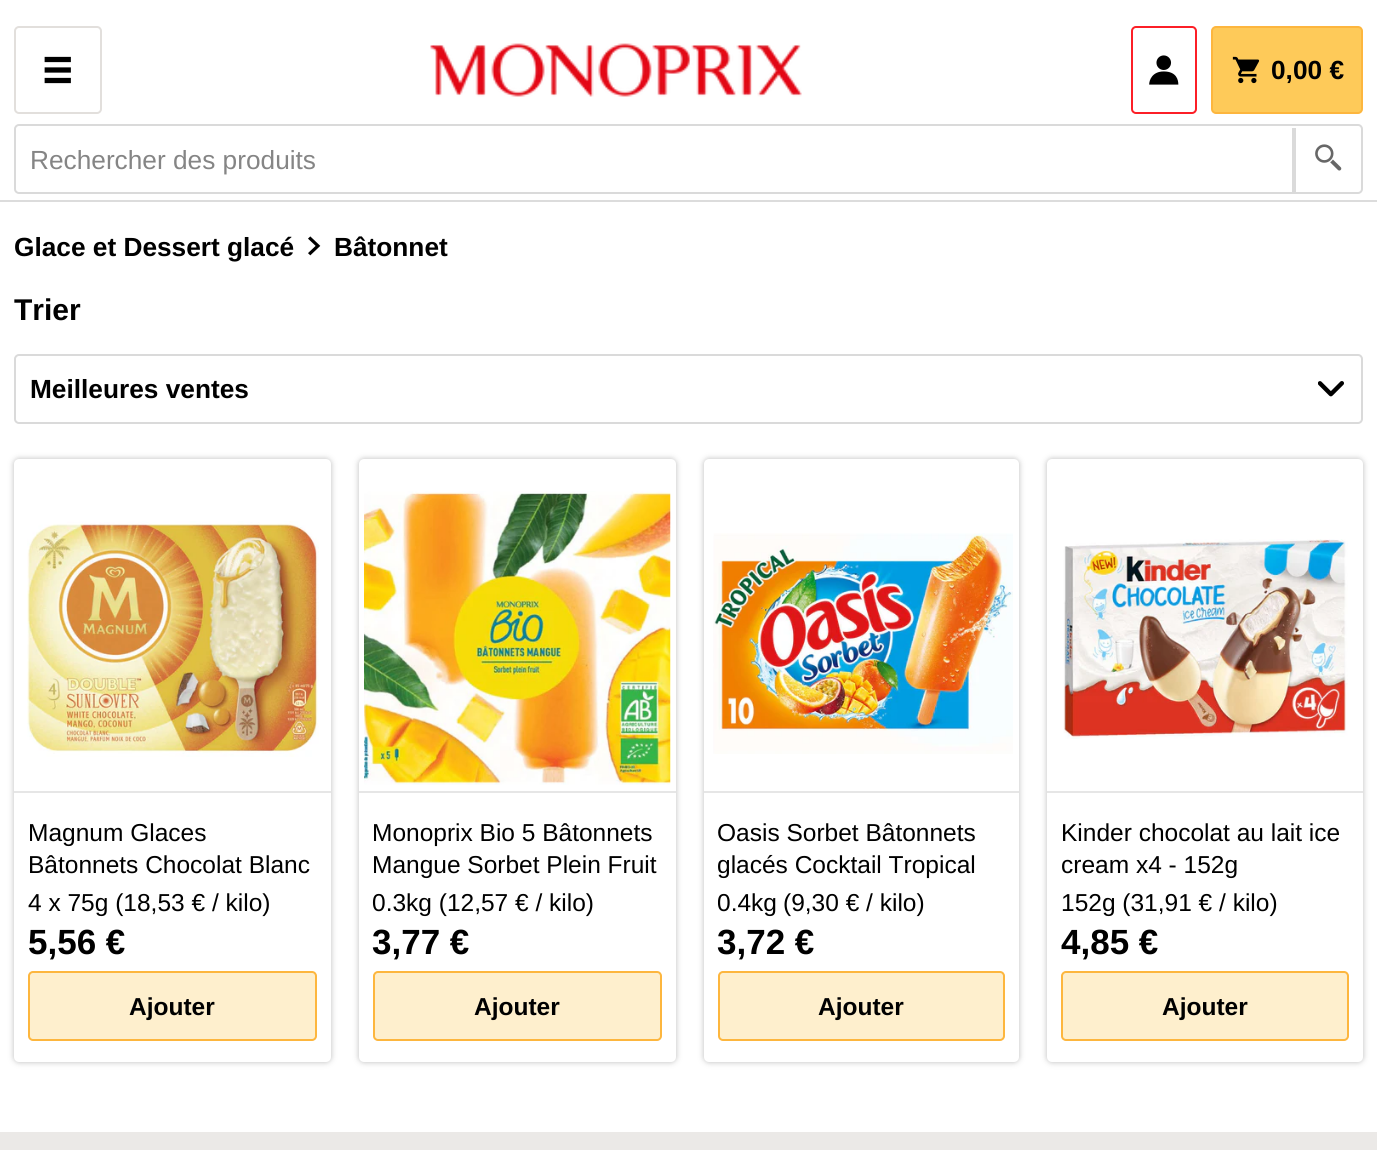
#include <cairo/cairo.h>
#include <math.h>
#include <stddef.h>

static cairo_t *cr;

static void use_color(int r, int g, int b) {
  cairo_set_source_rgb(cr, r / 255.0, g / 255.0, b / 255.0);
}

static void text(double x, double y, const char *s, const char *family, double size, int italic, int bold, int r, int g, int b) {
  cairo_select_font_face(cr, family, italic ? CAIRO_FONT_SLANT_ITALIC : CAIRO_FONT_SLANT_NORMAL,
    bold ? CAIRO_FONT_WEIGHT_BOLD : CAIRO_FONT_WEIGHT_NORMAL);
  cairo_set_font_size(cr, size);
  use_color(r, g, b);
  cairo_move_to(cr, x, y);
  cairo_show_text(cr, s);
}

static void box(double x, double y, double w, double h, int r, int g, int b) {
  use_color(r, g, b);
  cairo_rectangle(cr, x, y, w, h);
  cairo_fill(cr);
}

static void round_rect(double x, double y, double w, double h, double r) {
  cairo_new_sub_path(cr);
  cairo_arc(cr, x + w - r, y + h - r, r, 0, M_PI / 2);
  cairo_arc(cr, x + r, y + h - r, r, M_PI / 2, M_PI);
  cairo_arc(cr, x + r, y + r, r, M_PI, 1.5 * M_PI);
  cairo_arc(cr, x + w - r, y + r, r, 1.5 * M_PI, 2 * M_PI);
  cairo_close_path(cr);
}

static void shadow(double x, double y, double w, double h, double r, double blur, double alpha) {
  cairo_push_group_with_content(cr, CAIRO_CONTENT_ALPHA);
  cairo_set_operator(cr, CAIRO_OPERATOR_SOURCE);
  for (int i = 15; i >= -15 && fmin(w, h) + blur * i / 3 > 0; i -= 2) {
    double e = blur * i / 6;
    cairo_set_source_rgba(cr, 0, 0, 0, alpha * erfc((i - 1) / 8.5) / 2);
    round_rect(x - e, y - e, w + 2 * e, h + 2 * e, fmax(0, fmin(r + e + blur * .6, fmin(w, h) / 2 + e)));
    cairo_fill(cr);
  }
  cairo_pattern_t *soft = cairo_pop_group(cr);
  cairo_mask(cr, soft);
  cairo_pattern_destroy(soft);
}

static void picture(const char *path, double x, double y, double w, double h) {
  cairo_surface_t *image = cairo_image_surface_create_from_png(path);
  cairo_save(cr);
  cairo_set_source_surface(cr, image, x, y);
  cairo_rectangle(cr, x, y, w, h);
  cairo_fill(cr);
  cairo_restore(cr);
  cairo_surface_destroy(image);
}

static void draw(void) {
  use_color(255, 255, 255);
  cairo_paint(cr);
  box(0, 200, 1377, 2, 220, 220, 220);
  round_rect(15, 27, 86, 86, 4);
  use_color(226, 223, 220);
  cairo_stroke(cr);
  picture("img_01.png", 44, 56, 27, 28);
  picture("img_02.png", 430, 43, 372, 54);
  round_rect(1132, 27, 64, 86, 4);
  use_color(252, 31, 39);
  cairo_stroke(cr);
  picture("img_03.png", 1149, 55, 30, 30);
  use_color(254, 202, 89);
  round_rect(1212, 27, 150, 86, 4);
  cairo_fill_preserve(cr);
  use_color(253, 182, 62);
  cairo_stroke(cr);
  picture("img_04.png", 1232, 56, 28, 28);
  round_rect(15, 125, 1347, 68, 4);
  use_color(218, 218, 218);
  cairo_stroke(cr);
  box(1292, 128, 4, 65, 218, 218, 218);
  picture("img_05.png", 1315, 144, 27, 27);
  picture("img_06.png", 308, 236, 13, 20);
  picture("img_07.png", 1318, 381, 26, 16);
  round_rect(15, 355, 1347, 68, 4);
  cairo_stroke(cr);
  use_color(119, 119, 119);
  shadow(14, 459, 317, 603, 5, 3, 0.5);
  use_color(255, 255, 255);
  round_rect(14, 459, 317, 603, 5);
  cairo_fill(cr);
  picture("img_08.png", 27, 521, 292, 236);
  box(14, 791, 317, 2, 230, 230, 230);
  use_color(254, 239, 205);
  round_rect(29, 972, 287, 68, 4);
  cairo_fill_preserve(cr);
  use_color(253, 182, 62);
  cairo_stroke(cr);
  use_color(119, 119, 119);
  shadow(359, 459, 317, 603, 5, 3, 0.5);
  use_color(255, 255, 255);
  round_rect(359, 459, 317, 603, 5);
  cairo_fill(cr);
  picture("img_09.png", 364, 491, 307, 294);
  box(359, 791, 317, 2, 230, 230, 230);
  use_color(254, 239, 205);
  round_rect(374, 972, 287, 68, 4);
  cairo_fill_preserve(cr);
  use_color(253, 182, 62);
  cairo_stroke(cr);
  use_color(119, 119, 119);
  shadow(704, 459, 315, 603, 5, 3, 0.5);
  use_color(255, 255, 255);
  round_rect(704, 459, 315, 603, 5);
  cairo_fill(cr);
  picture("img_10.png", 713, 533, 300, 221);
  box(704, 791, 315, 2, 230, 230, 230);
  use_color(254, 239, 205);
  round_rect(719, 972, 285, 68, 4);
  cairo_fill_preserve(cr);
  use_color(253, 182, 62);
  cairo_stroke(cr);
  use_color(119, 119, 119);
  shadow(1047, 459, 316, 603, 5, 3, 0.5);
  use_color(255, 255, 255);
  round_rect(1047, 459, 316, 603, 5);
  cairo_fill(cr);
  picture("img_11.png", 1063, 539, 285, 200);
  box(1047, 791, 316, 2, 230, 230, 230);
  use_color(254, 239, 205);
  round_rect(1062, 972, 286, 68, 4);
  cairo_fill_preserve(cr);
  use_color(253, 182, 62);
  cairo_stroke(cr);
  box(0, 1132, 1377, 18, 235, 233, 231);
  text(1271, 79, "0,00 €", "Liberation Sans", 26.25, 0, 1, 0, 0, 0);
  text(30, 169, "Rechercher des produits", "Liberation Sans", 26.25, 0, 0, 133, 133, 133);
  text(14, 256, "Glace et Dessert glacé", "Liberation Sans", 26.25, 0, 1, 0, 0, 0);
  text(334, 256, "Bâtonnet", "Liberation Sans", 26.25, 0, 1, 0, 0, 0);
  text(14, 320, "Trier", "Liberation Sans", 30, 0, 1, 0, 0, 0);
  text(30, 398, "Meilleures ventes", "Liberation Sans", 26.25, 0, 1, 0, 0, 0);
  text(28, 841, "Magnum Glaces", "Liberation Sans", 24.5, 0, 0, 0, 0, 0);
  text(28, 873, "Bâtonnets Chocolat Blanc", "Liberation Sans", 24.5, 0, 0, 0, 0, 0);
  text(28, 911, "4 x 75g (18,53 € / kilo)", "Liberation Sans", 24.5, 0, 0, 0, 0, 0);
  text(28, 954, "5,56 €", "Liberation Sans", 35, 0, 1, 0, 0, 0);
  text(129, 1015, "Ajouter", "Liberation Sans", 24.5, 0, 1, 0, 0, 0);
  text(372, 841, "Monoprix Bio 5 Bâtonnets", "Liberation Sans", 24.5, 0, 0, 0, 0, 0);
  text(372, 873, "Mangue Sorbet Plein Fruit", "Liberation Sans", 24.5, 0, 0, 0, 0, 0);
  text(372, 911, "0.3kg (12,57 € / kilo)", "Liberation Sans", 24.5, 0, 0, 0, 0, 0);
  text(372, 954, "3,77 €", "Liberation Sans", 35, 0, 1, 0, 0, 0);
  text(474, 1015, "Ajouter", "Liberation Sans", 24.5, 0, 1, 0, 0, 0);
  cairo_save(cr);
  cairo_rectangle(cr, 718, 817, 287, 70);
  cairo_clip(cr);
  text(717, 841, "Oasis Sorbet Bâtonnets", "Liberation Sans", 24.5, 0, 0, 0, 0, 0);
  text(717, 873, "glacés Cocktail Tropical", "Liberation Sans", 24.5, 0, 0, 0, 0, 0);
  cairo_restore(cr);
  cairo_save(cr);
  cairo_rectangle(cr, 718, 887, 208, 32);
  cairo_clip(cr);
  text(717, 911, "0.4kg", "Liberation Sans", 24.5, 0, 0, 0, 0, 0);
  cairo_restore(cr);
  text(783, 911, "(9,30 € / kilo)", "Liberation Sans", 24.5, 0, 0, 0, 0, 0);
  text(717, 954, "3,72 €", "Liberation Sans", 35, 0, 1, 0, 0, 0);
  text(818, 1015, "Ajouter", "Liberation Sans", 24.5, 0, 1, 0, 0, 0);
  text(1061, 841, "Kinder chocolat au lait ice", "Liberation Sans", 24.5, 0, 0, 0, 0, 0);
  text(1061, 873, "cream x4 - 152g", "Liberation Sans", 24.5, 0, 0, 0, 0, 0);
  text(1061, 911, "152g (31,91 € / kilo)", "Liberation Sans", 24.5, 0, 0, 0, 0, 0);
  text(1061, 954, "4,85 €", "Liberation Sans", 35, 0, 1, 0, 0, 0);
  text(1162, 1015, "Ajouter", "Liberation Sans", 24.5, 0, 1, 0, 0, 0);
}

int main(void) {
  cairo_surface_t *surface = cairo_image_surface_create(CAIRO_FORMAT_RGB24, 1377, 1158);
  cr = cairo_create(surface);
  cairo_font_options_t *options = cairo_font_options_create();
  cairo_font_options_set_hint_metrics(options, CAIRO_HINT_METRICS_OFF);
  cairo_font_options_set_hint_style(options, CAIRO_HINT_STYLE_NONE);
  cairo_set_font_options(cr, options);
  cairo_set_miter_limit(cr, 4);
  draw();
  cairo_surface_write_to_png(surface, "out.png");
  cairo_font_options_destroy(options);
  cairo_destroy(cr);
  cairo_surface_destroy(surface);
  return 0;
}
